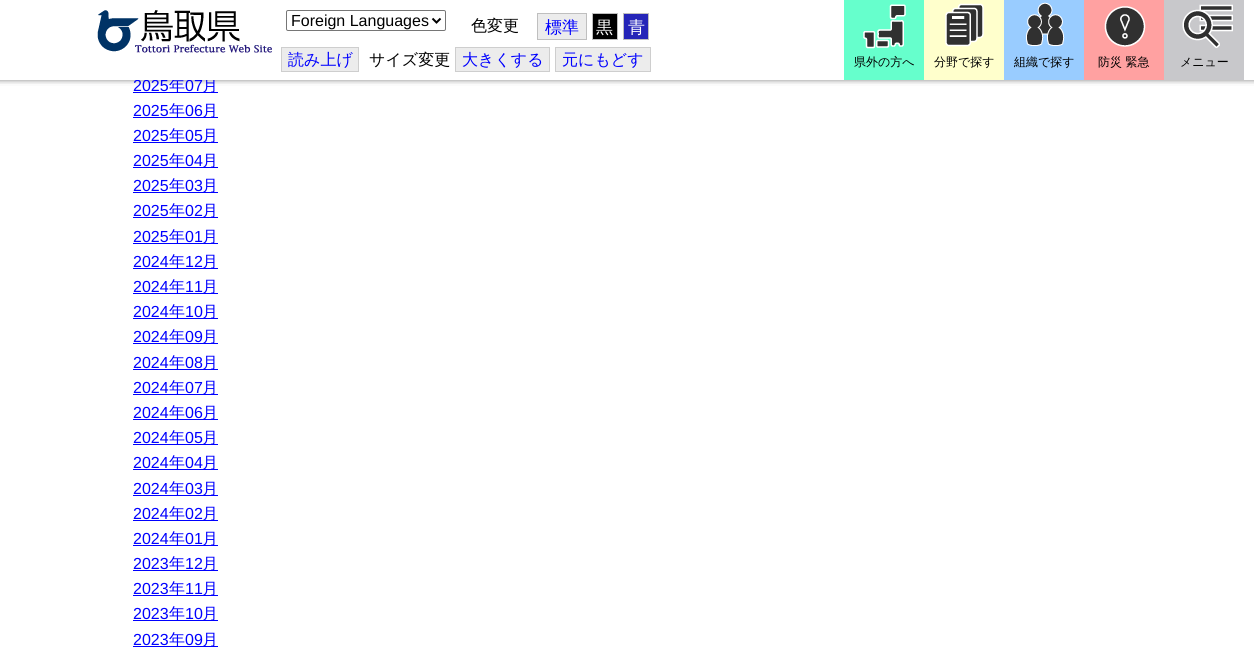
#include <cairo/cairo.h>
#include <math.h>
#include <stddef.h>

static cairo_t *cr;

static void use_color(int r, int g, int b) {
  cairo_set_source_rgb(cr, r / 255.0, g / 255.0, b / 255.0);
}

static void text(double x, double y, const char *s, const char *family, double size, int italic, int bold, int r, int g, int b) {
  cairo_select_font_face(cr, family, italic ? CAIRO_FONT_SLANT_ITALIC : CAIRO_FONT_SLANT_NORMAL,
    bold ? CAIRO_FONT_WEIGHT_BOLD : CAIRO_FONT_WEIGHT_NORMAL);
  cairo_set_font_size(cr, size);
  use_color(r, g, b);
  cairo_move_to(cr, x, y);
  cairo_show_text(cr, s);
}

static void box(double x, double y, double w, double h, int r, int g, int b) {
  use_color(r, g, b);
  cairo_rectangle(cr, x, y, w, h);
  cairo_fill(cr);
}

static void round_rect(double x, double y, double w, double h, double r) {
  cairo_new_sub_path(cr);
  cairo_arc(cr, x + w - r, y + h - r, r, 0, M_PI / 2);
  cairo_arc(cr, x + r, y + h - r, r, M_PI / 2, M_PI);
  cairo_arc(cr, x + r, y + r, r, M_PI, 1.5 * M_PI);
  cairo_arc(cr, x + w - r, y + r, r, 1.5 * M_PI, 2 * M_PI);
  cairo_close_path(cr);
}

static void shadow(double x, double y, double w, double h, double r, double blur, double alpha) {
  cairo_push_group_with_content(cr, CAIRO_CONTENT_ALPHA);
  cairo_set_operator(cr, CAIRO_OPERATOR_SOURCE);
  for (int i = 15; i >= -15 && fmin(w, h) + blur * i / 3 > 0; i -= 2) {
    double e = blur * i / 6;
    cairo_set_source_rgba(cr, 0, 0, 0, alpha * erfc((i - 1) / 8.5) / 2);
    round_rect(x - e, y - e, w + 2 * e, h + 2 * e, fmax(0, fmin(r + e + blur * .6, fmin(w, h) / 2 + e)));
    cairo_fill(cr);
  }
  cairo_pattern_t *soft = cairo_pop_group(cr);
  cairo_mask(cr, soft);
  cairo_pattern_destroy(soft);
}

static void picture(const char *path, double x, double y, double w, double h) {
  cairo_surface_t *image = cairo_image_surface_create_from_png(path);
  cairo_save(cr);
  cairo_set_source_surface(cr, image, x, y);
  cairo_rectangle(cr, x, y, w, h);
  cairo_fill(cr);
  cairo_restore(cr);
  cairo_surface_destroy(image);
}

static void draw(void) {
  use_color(255, 255, 255);
  cairo_paint(cr);
  use_color(0, 0, 0);
  shadow(-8, 1, 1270, 80, 0, 2.5, 0.1);
  shadow(-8, 1, 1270, 80, 0, 2.5, 0.1);
  shadow(-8, 1, 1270, 80, 0, 2.5, 0.1);
  shadow(-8, 1, 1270, 80, 0, 2.5, 0.1);
  box(133, 92, 85, 1, 0, 0, 255);
  box(133, 117, 85, 1, 0, 0, 255);
  box(133, 142, 85, 1, 0, 0, 255);
  box(133, 167, 85, 1, 0, 0, 255);
  box(133, 192, 85, 1, 0, 0, 255);
  box(133, 217, 85, 1, 0, 0, 255);
  box(133, 243, 85, 1, 0, 0, 255);
  box(133, 268, 85, 1, 0, 0, 255);
  box(133, 293, 85, 1, 0, 0, 255);
  box(133, 318, 85, 1, 0, 0, 255);
  box(133, 343, 85, 1, 0, 0, 255);
  box(133, 369, 85, 1, 0, 0, 255);
  box(133, 394, 85, 1, 0, 0, 255);
  box(133, 419, 85, 1, 0, 0, 255);
  box(133, 444, 85, 1, 0, 0, 255);
  box(133, 469, 85, 1, 0, 0, 255);
  box(133, 495, 85, 1, 0, 0, 255);
  box(133, 520, 85, 1, 0, 0, 255);
  box(133, 545, 85, 1, 0, 0, 255);
  box(133, 570, 85, 1, 0, 0, 255);
  box(133, 595, 85, 1, 0, 0, 255);
  box(133, 620, 85, 1, 0, 0, 255);
  box(133, 646, 85, 1, 0, 0, 255);
  text(133, 91, "2025", "Liberation Sans", 16, 0, 0, 0, 0, 255);
  text(169, 91, "年", "WenQuanYi Zen Hei Medium", 16, 0, 0, 0, 0, 255);
  text(185, 91, "07", "Liberation Sans", 16, 0, 0, 0, 0, 255);
  text(202, 91, "月", "WenQuanYi Zen Hei Medium", 16, 0, 0, 0, 0, 255);
  box(0, 0, 1254, 80, 255, 255, 255);
  box(1164, 0, 80, 80, 200, 200, 203);
  text(1180, 66, "メニュー", "WenQuanYi Zen Hei Medium", 12, 0, 0, 0, 0, 0);
  picture("img_06.png", 1182, 4, 51, 44);
  box(1084, 0, 80, 80, 255, 161, 161);
  text(1098, 66, "防災 緊急", "WenQuanYi Zen Hei Medium", 12, 0, 0, 0, 0, 0);
  picture("img_05.png", 1104, 6, 42, 41);
  box(1004, 0, 80, 80, 153, 204, 255);
  text(1014, 66, "組織で探す", "WenQuanYi Zen Hei Medium", 12, 0, 0, 0, 0, 0);
  picture("img_04.png", 1026, 2, 39, 44);
  box(924, 0, 80, 80, 255, 255, 204);
  text(934, 66, "分野で探す", "WenQuanYi Zen Hei Medium", 12, 0, 0, 0, 0, 0);
  picture("img_03.png", 945, 3, 39, 44);
  box(844, 0, 80, 80, 102, 255, 204);
  text(854, 66, "県外の方へ", "WenQuanYi Zen Hei Medium", 12, 0, 0, 0, 0, 0);
  picture("img_02.png", 863, 4, 43, 45);
  picture("img_01.png", 97, 10, 175, 43);
  box(556, 48, 94, 23, 236, 236, 236);
  text(562, 65, "元にもどす", "WenQuanYi Zen Hei Medium", 16, 0, 0, 0, 0, 255);
  box(555, 47, 96, 1, 206, 206, 206);
  box(650, 47, 1, 25, 206, 206, 206);
  box(578, 71, 73, 1, 206, 206, 206);
  box(555, 71, 23, 1, 206, 206, 206);
  box(555, 47, 1, 25, 206, 206, 206);
  box(456, 48, 93, 23, 236, 236, 236);
  text(462, 65, "大きくする", "WenQuanYi Zen Hei Medium", 16, 0, 0, 0, 0, 255);
  box(455, 47, 95, 1, 206, 206, 206);
  box(549, 47, 1, 25, 206, 206, 206);
  box(478, 71, 72, 1, 206, 206, 206);
  box(455, 71, 23, 1, 206, 206, 206);
  box(455, 47, 1, 25, 206, 206, 206);
  text(369, 65, "サイズ変更", "WenQuanYi Zen Hei Medium", 16, 0, 0, 0, 0, 0);
  use_color(236, 236, 236);
  cairo_rectangle(cr, 281.5, 47.5, 77, 24);
  cairo_fill_preserve(cr);
  use_color(206, 206, 206);
  cairo_set_line_width(cr, 1);
  cairo_stroke(cr);
  text(288, 65, "読み上げ", "WenQuanYi Zen Hei Medium", 16, 0, 0, 0, 0, 255);
  use_color(37, 37, 184);
  cairo_rectangle(cr, 623.5, 13.5, 25, 26);
  cairo_fill_preserve(cr);
  use_color(191, 191, 191);
  cairo_stroke(cr);
  text(628, 33, "青", "WenQuanYi Zen Hei Medium", 17, 0, 0, 255, 255, 255);
  use_color(0, 0, 0);
  cairo_rectangle(cr, 592.5, 13.5, 25, 26);
  cairo_fill_preserve(cr);
  use_color(191, 191, 191);
  cairo_stroke(cr);
  text(596, 33, "黒", "WenQuanYi Zen Hei Medium", 17, 0, 0, 255, 255, 255);
  use_color(236, 236, 236);
  cairo_rectangle(cr, 537.5, 13.5, 49, 26);
  cairo_fill_preserve(cr);
  use_color(191, 191, 191);
  cairo_stroke(cr);
  text(545, 33, "標準", "WenQuanYi Zen Hei Medium", 17, 0, 0, 0, 0, 255);
  text(471, 31, "色変更", "WenQuanYi Zen Hei Medium", 16, 0, 0, 0, 0, 0);
  round_rect(286.5, 10.5, 159, 20, 1.5);
  use_color(118, 118, 118);
  cairo_stroke(cr);
  text(291, 26, "Foreign Languages", "Liberation Sans", 16, 0, 0, 0, 0, 0);
  cairo_new_path(cr);
  cairo_move_to(cr, 432.5, 18.5);
  cairo_line_to(cr, 436.5, 22.5);
  cairo_line_to(cr, 440.5, 18.5);
  cairo_set_line_width(cr, 2);
  cairo_stroke(cr);
  text(133, 116, "2025", "Liberation Sans", 16, 0, 0, 0, 0, 255);
  text(169, 116, "年", "WenQuanYi Zen Hei Medium", 16, 0, 0, 0, 0, 255);
  text(185, 116, "06", "Liberation Sans", 16, 0, 0, 0, 0, 255);
  text(202, 116, "月", "WenQuanYi Zen Hei Medium", 16, 0, 0, 0, 0, 255);
  text(133, 141, "2025", "Liberation Sans", 16, 0, 0, 0, 0, 255);
  text(169, 141, "年", "WenQuanYi Zen Hei Medium", 16, 0, 0, 0, 0, 255);
  text(185, 141, "05", "Liberation Sans", 16, 0, 0, 0, 0, 255);
  text(202, 141, "月", "WenQuanYi Zen Hei Medium", 16, 0, 0, 0, 0, 255);
  text(133, 166, "2025", "Liberation Sans", 16, 0, 0, 0, 0, 255);
  text(169, 166, "年", "WenQuanYi Zen Hei Medium", 16, 0, 0, 0, 0, 255);
  text(185, 166, "04", "Liberation Sans", 16, 0, 0, 0, 0, 255);
  text(202, 166, "月", "WenQuanYi Zen Hei Medium", 16, 0, 0, 0, 0, 255);
  text(133, 191, "2025", "Liberation Sans", 16, 0, 0, 0, 0, 255);
  text(169, 191, "年", "WenQuanYi Zen Hei Medium", 16, 0, 0, 0, 0, 255);
  text(185, 191, "03", "Liberation Sans", 16, 0, 0, 0, 0, 255);
  text(202, 191, "月", "WenQuanYi Zen Hei Medium", 16, 0, 0, 0, 0, 255);
  text(133, 216, "2025", "Liberation Sans", 16, 0, 0, 0, 0, 255);
  text(169, 216, "年", "WenQuanYi Zen Hei Medium", 16, 0, 0, 0, 0, 255);
  text(185, 216, "02", "Liberation Sans", 16, 0, 0, 0, 0, 255);
  text(202, 216, "月", "WenQuanYi Zen Hei Medium", 16, 0, 0, 0, 0, 255);
  text(133, 242, "2025", "Liberation Sans", 16, 0, 0, 0, 0, 255);
  text(169, 242, "年", "WenQuanYi Zen Hei Medium", 16, 0, 0, 0, 0, 255);
  text(185, 242, "01", "Liberation Sans", 16, 0, 0, 0, 0, 255);
  text(202, 242, "月", "WenQuanYi Zen Hei Medium", 16, 0, 0, 0, 0, 255);
  text(133, 267, "2024", "Liberation Sans", 16, 0, 0, 0, 0, 255);
  text(169, 267, "年", "WenQuanYi Zen Hei Medium", 16, 0, 0, 0, 0, 255);
  text(185, 267, "12", "Liberation Sans", 16, 0, 0, 0, 0, 255);
  text(202, 267, "月", "WenQuanYi Zen Hei Medium", 16, 0, 0, 0, 0, 255);
  text(133, 292, "2024", "Liberation Sans", 16, 0, 0, 0, 0, 255);
  text(169, 292, "年", "WenQuanYi Zen Hei Medium", 16, 0, 0, 0, 0, 255);
  text(185, 292, "11", "Liberation Sans", 16, 0, 0, 0, 0, 255);
  text(202, 292, "月", "WenQuanYi Zen Hei Medium", 16, 0, 0, 0, 0, 255);
  text(133, 317, "2024", "Liberation Sans", 16, 0, 0, 0, 0, 255);
  text(169, 317, "年", "WenQuanYi Zen Hei Medium", 16, 0, 0, 0, 0, 255);
  text(185, 317, "10", "Liberation Sans", 16, 0, 0, 0, 0, 255);
  text(202, 317, "月", "WenQuanYi Zen Hei Medium", 16, 0, 0, 0, 0, 255);
  text(133, 342, "2024", "Liberation Sans", 16, 0, 0, 0, 0, 255);
  text(169, 342, "年", "WenQuanYi Zen Hei Medium", 16, 0, 0, 0, 0, 255);
  text(185, 342, "09", "Liberation Sans", 16, 0, 0, 0, 0, 255);
  text(202, 342, "月", "WenQuanYi Zen Hei Medium", 16, 0, 0, 0, 0, 255);
  text(133, 368, "2024", "Liberation Sans", 16, 0, 0, 0, 0, 255);
  text(169, 368, "年", "WenQuanYi Zen Hei Medium", 16, 0, 0, 0, 0, 255);
  text(185, 368, "08", "Liberation Sans", 16, 0, 0, 0, 0, 255);
  text(202, 368, "月", "WenQuanYi Zen Hei Medium", 16, 0, 0, 0, 0, 255);
  text(133, 393, "2024", "Liberation Sans", 16, 0, 0, 0, 0, 255);
  text(169, 393, "年", "WenQuanYi Zen Hei Medium", 16, 0, 0, 0, 0, 255);
  text(185, 393, "07", "Liberation Sans", 16, 0, 0, 0, 0, 255);
  text(202, 393, "月", "WenQuanYi Zen Hei Medium", 16, 0, 0, 0, 0, 255);
  text(133, 418, "2024", "Liberation Sans", 16, 0, 0, 0, 0, 255);
  text(169, 418, "年", "WenQuanYi Zen Hei Medium", 16, 0, 0, 0, 0, 255);
  text(185, 418, "06", "Liberation Sans", 16, 0, 0, 0, 0, 255);
  text(202, 418, "月", "WenQuanYi Zen Hei Medium", 16, 0, 0, 0, 0, 255);
  text(133, 443, "2024", "Liberation Sans", 16, 0, 0, 0, 0, 255);
  text(169, 443, "年", "WenQuanYi Zen Hei Medium", 16, 0, 0, 0, 0, 255);
  text(185, 443, "05", "Liberation Sans", 16, 0, 0, 0, 0, 255);
  text(202, 443, "月", "WenQuanYi Zen Hei Medium", 16, 0, 0, 0, 0, 255);
  text(133, 468, "2024", "Liberation Sans", 16, 0, 0, 0, 0, 255);
  text(169, 468, "年", "WenQuanYi Zen Hei Medium", 16, 0, 0, 0, 0, 255);
  text(185, 468, "04", "Liberation Sans", 16, 0, 0, 0, 0, 255);
  text(202, 468, "月", "WenQuanYi Zen Hei Medium", 16, 0, 0, 0, 0, 255);
  text(133, 494, "2024", "Liberation Sans", 16, 0, 0, 0, 0, 255);
  text(169, 494, "年", "WenQuanYi Zen Hei Medium", 16, 0, 0, 0, 0, 255);
  text(185, 494, "03", "Liberation Sans", 16, 0, 0, 0, 0, 255);
  text(202, 494, "月", "WenQuanYi Zen Hei Medium", 16, 0, 0, 0, 0, 255);
  text(133, 519, "2024", "Liberation Sans", 16, 0, 0, 0, 0, 255);
  text(169, 519, "年", "WenQuanYi Zen Hei Medium", 16, 0, 0, 0, 0, 255);
  text(185, 519, "02", "Liberation Sans", 16, 0, 0, 0, 0, 255);
  text(202, 519, "月", "WenQuanYi Zen Hei Medium", 16, 0, 0, 0, 0, 255);
  text(133, 544, "2024", "Liberation Sans", 16, 0, 0, 0, 0, 255);
  text(169, 544, "年", "WenQuanYi Zen Hei Medium", 16, 0, 0, 0, 0, 255);
  text(185, 544, "01", "Liberation Sans", 16, 0, 0, 0, 0, 255);
  text(202, 544, "月", "WenQuanYi Zen Hei Medium", 16, 0, 0, 0, 0, 255);
  text(133, 569, "2023", "Liberation Sans", 16, 0, 0, 0, 0, 255);
  text(169, 569, "年", "WenQuanYi Zen Hei Medium", 16, 0, 0, 0, 0, 255);
  text(185, 569, "12", "Liberation Sans", 16, 0, 0, 0, 0, 255);
  text(202, 569, "月", "WenQuanYi Zen Hei Medium", 16, 0, 0, 0, 0, 255);
  text(133, 594, "2023", "Liberation Sans", 16, 0, 0, 0, 0, 255);
  text(169, 594, "年", "WenQuanYi Zen Hei Medium", 16, 0, 0, 0, 0, 255);
  text(185, 594, "11", "Liberation Sans", 16, 0, 0, 0, 0, 255);
  text(202, 594, "月", "WenQuanYi Zen Hei Medium", 16, 0, 0, 0, 0, 255);
  text(133, 619, "2023", "Liberation Sans", 16, 0, 0, 0, 0, 255);
  text(169, 619, "年", "WenQuanYi Zen Hei Medium", 16, 0, 0, 0, 0, 255);
  text(185, 619, "10", "Liberation Sans", 16, 0, 0, 0, 0, 255);
  text(202, 619, "月", "WenQuanYi Zen Hei Medium", 16, 0, 0, 0, 0, 255);
  text(133, 645, "2023", "Liberation Sans", 16, 0, 0, 0, 0, 255);
  text(169, 645, "年", "WenQuanYi Zen Hei Medium", 16, 0, 0, 0, 0, 255);
  text(185, 645, "09", "Liberation Sans", 16, 0, 0, 0, 0, 255);
  text(202, 645, "月", "WenQuanYi Zen Hei Medium", 16, 0, 0, 0, 0, 255);
}

int main(void) {
  cairo_surface_t *surface = cairo_image_surface_create(CAIRO_FORMAT_RGB24, 1254, 655);
  cr = cairo_create(surface);
  cairo_font_options_t *options = cairo_font_options_create();
  cairo_font_options_set_hint_metrics(options, CAIRO_HINT_METRICS_OFF);
  cairo_font_options_set_hint_style(options, CAIRO_HINT_STYLE_NONE);
  cairo_set_font_options(cr, options);
  cairo_set_miter_limit(cr, 4);
  draw();
  cairo_surface_write_to_png(surface, "out.png");
  cairo_font_options_destroy(options);
  cairo_destroy(cr);
  cairo_surface_destroy(surface);
  return 0;
}
